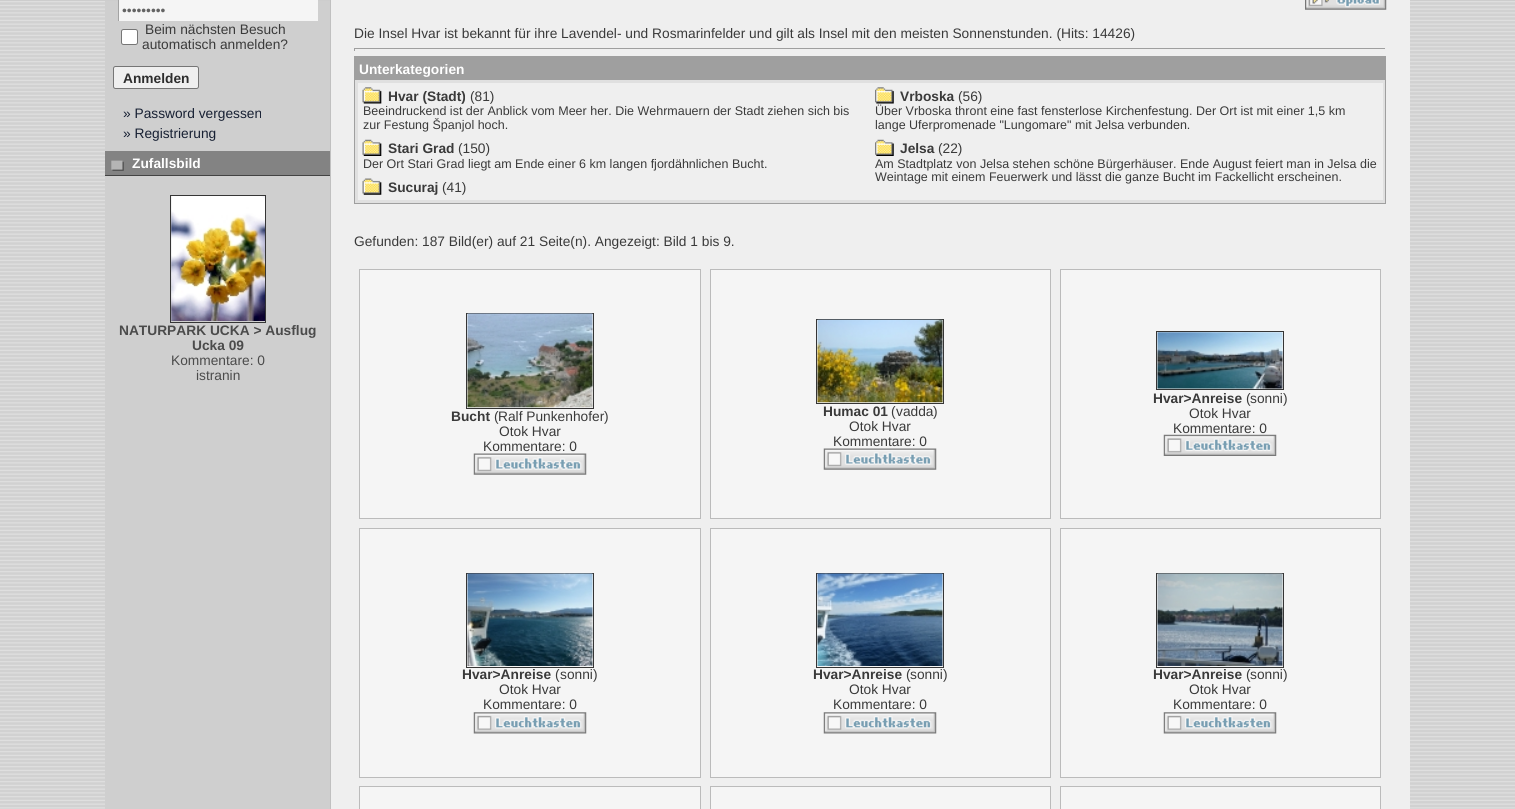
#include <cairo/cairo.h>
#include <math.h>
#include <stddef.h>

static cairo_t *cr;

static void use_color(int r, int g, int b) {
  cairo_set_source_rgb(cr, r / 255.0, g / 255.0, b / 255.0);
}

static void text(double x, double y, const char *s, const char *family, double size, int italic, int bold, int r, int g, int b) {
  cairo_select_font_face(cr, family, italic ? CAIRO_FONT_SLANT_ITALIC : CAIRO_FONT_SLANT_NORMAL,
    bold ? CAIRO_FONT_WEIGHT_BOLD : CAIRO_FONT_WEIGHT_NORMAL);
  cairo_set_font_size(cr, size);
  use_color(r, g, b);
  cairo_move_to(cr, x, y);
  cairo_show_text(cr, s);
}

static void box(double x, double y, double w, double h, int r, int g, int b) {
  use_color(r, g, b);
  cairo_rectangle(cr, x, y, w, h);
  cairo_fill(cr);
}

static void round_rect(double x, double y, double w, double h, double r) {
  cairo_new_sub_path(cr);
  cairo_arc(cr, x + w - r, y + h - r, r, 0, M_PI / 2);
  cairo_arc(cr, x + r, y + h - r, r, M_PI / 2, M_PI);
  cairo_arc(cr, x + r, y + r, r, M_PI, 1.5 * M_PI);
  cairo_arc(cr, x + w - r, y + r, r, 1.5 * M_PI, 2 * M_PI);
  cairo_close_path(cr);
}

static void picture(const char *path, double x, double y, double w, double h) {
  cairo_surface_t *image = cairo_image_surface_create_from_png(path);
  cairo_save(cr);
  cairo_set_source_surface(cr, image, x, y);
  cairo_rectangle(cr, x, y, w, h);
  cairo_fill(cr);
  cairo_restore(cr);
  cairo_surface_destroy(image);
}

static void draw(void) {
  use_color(205, 205, 205);
  cairo_paint(cr);
  picture("img_01.png", 0, 1, 1515, 808);
  box(331, 0, 1079, 809, 239, 239, 239);
  box(105, 1, 225, 808, 207, 207, 207);
  box(119, 0, 199, 21, 245, 245, 245);
  box(118, 0, 1, 21, 163, 163, 163);
  use_color(255, 255, 255);
  round_rect(121.5, 29.5, 16, 15, 2);
  cairo_fill_preserve(cr);
  use_color(118, 118, 118);
  cairo_set_line_width(cr, 1);
  cairo_stroke(cr);
  use_color(239, 239, 239);
  round_rect(113.5, 66.5, 85, 22, 2);
  cairo_fill_preserve(cr);
  use_color(118, 118, 118);
  cairo_stroke(cr);
  box(105, 151, 225, 24, 131, 131, 131);
  picture("img_02.png", 111, 160, 13, 11);
  box(105, 175, 225, 1, 67, 67, 67);
  cairo_rectangle(cr, 170.5, 195.5, 95, 127);
  use_color(53, 53, 53);
  cairo_stroke(cr);
  picture("img_03.png", 171, 196, 94, 125);
  box(330, 0, 1, 809, 192, 192, 192);
  picture("img_04.png", 1305, 0, 82, 10);
  box(354, 48, 1032, 1, 159, 159, 159);
  box(1385, 48, 1, 3, 238, 238, 238);
  box(354, 48, 1, 3, 159, 159, 159);
  box(354, 56, 1032, 148, 159, 159, 159);
  box(355, 80, 1030, 123, 224, 224, 224);
  box(358, 83, 1025, 117, 239, 239, 239);
  picture("img_05.png", 362, 87, 20, 17);
  picture("img_06.png", 362, 139, 20, 17);
  picture("img_07.png", 362, 178, 20, 17);
  picture("img_08.png", 875, 87, 19, 17);
  picture("img_09.png", 875, 139, 19, 17);
  use_color(245, 245, 245);
  cairo_rectangle(cr, 359.5, 269.5, 341, 249);
  cairo_fill_preserve(cr);
  use_color(187, 187, 187);
  cairo_stroke(cr);
  cairo_rectangle(cr, 466.5, 313.5, 127, 95);
  use_color(53, 53, 53);
  cairo_stroke(cr);
  picture("img_10.png", 467, 313, 126, 95);
  picture("img_11.png", 473, 453, 114, 22);
  use_color(245, 245, 245);
  cairo_rectangle(cr, 710.5, 269.5, 340, 249);
  cairo_fill_preserve(cr);
  use_color(187, 187, 187);
  cairo_stroke(cr);
  cairo_rectangle(cr, 816.5, 319.5, 127, 84);
  use_color(53, 53, 53);
  cairo_stroke(cr);
  picture("img_12.png", 817, 319, 126, 84);
  picture("img_13.png", 823, 448, 114, 22);
  use_color(245, 245, 245);
  cairo_rectangle(cr, 1060.5, 269.5, 320, 249);
  cairo_fill_preserve(cr);
  use_color(187, 187, 187);
  cairo_stroke(cr);
  cairo_rectangle(cr, 1156.5, 331.5, 127, 58);
  use_color(53, 53, 53);
  cairo_stroke(cr);
  picture("img_14.png", 1157, 332, 126, 57);
  picture("img_15.png", 1163, 434, 114, 22);
  use_color(245, 245, 245);
  cairo_rectangle(cr, 359.5, 528.5, 341, 249);
  cairo_fill_preserve(cr);
  use_color(187, 187, 187);
  cairo_stroke(cr);
  cairo_rectangle(cr, 466.5, 573.5, 127, 94);
  use_color(53, 53, 53);
  cairo_stroke(cr);
  picture("img_16.png", 467, 573, 126, 93);
  picture("img_17.png", 473, 712, 114, 22);
  use_color(245, 245, 245);
  cairo_rectangle(cr, 710.5, 528.5, 340, 249);
  cairo_fill_preserve(cr);
  use_color(187, 187, 187);
  cairo_stroke(cr);
  cairo_rectangle(cr, 816.5, 573.5, 127, 94);
  use_color(53, 53, 53);
  cairo_stroke(cr);
  picture("img_18.png", 817, 573, 126, 93);
  picture("img_19.png", 823, 712, 114, 22);
  use_color(245, 245, 245);
  cairo_rectangle(cr, 1060.5, 528.5, 320, 249);
  cairo_fill_preserve(cr);
  use_color(187, 187, 187);
  cairo_stroke(cr);
  cairo_rectangle(cr, 1156.5, 573.5, 127, 94);
  use_color(53, 53, 53);
  cairo_stroke(cr);
  picture("img_20.png", 1157, 573, 126, 93);
  picture("img_19.png", 1163, 712, 114, 22);
  use_color(245, 245, 245);
  cairo_rectangle(cr, 359.5, 786.5, 341, 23);
  cairo_fill_preserve(cr);
  use_color(187, 187, 187);
  cairo_stroke(cr);
  use_color(245, 245, 245);
  cairo_rectangle(cr, 710.5, 786.5, 340, 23);
  cairo_fill_preserve(cr);
  use_color(187, 187, 187);
  cairo_stroke(cr);
  use_color(245, 245, 245);
  cairo_rectangle(cr, 1060.5, 786.5, 320, 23);
  cairo_fill_preserve(cr);
  use_color(187, 187, 187);
  cairo_stroke(cr);
  text(122, 15, "•••••••••", "Liberation Sans", 13.75, 0, 0, 100, 100, 100);
  text(145, 34, "Beim nächsten Besuch", "Liberation Sans", 13.75, 0, 0, 58, 58, 58);
  text(142, 49, "automatisch anmelden?", "Liberation Sans", 13.75, 0, 0, 58, 58, 58);
  text(123, 83, "Anmelden", "Liberation Sans", 13.75, 0, 1, 45, 45, 45);
  text(123, 118, "» Password vergessen", "Liberation Sans", 13.75, 0, 0, 23, 32, 51);
  text(123, 138, "» Registrierung", "Liberation Sans", 13.75, 0, 0, 23, 32, 51);
  text(132, 168, "Zufallsbild", "Liberation Sans", 13.75, 0, 1, 255, 255, 255);
  text(119, 335, "NATURPARK UCKA > Ausflug", "Liberation Sans", 13.75, 0, 1, 75, 75, 75);
  text(192, 350, "Ucka 09", "Liberation Sans", 13.75, 0, 1, 75, 75, 75);
  text(171, 365, "Kommentare: 0", "Liberation Sans", 13.75, 0, 0, 75, 75, 75);
  text(196, 380, "istranin", "Liberation Sans", 13.75, 0, 0, 75, 75, 75);
  text(354, 38, "Die Insel Hvar ist bekannt für ihre Lavendel- und Rosmarinfelder und gilt als Insel mit den meisten Sonnenstunden. (Hits: 14426)", "Liberation Sans", 13.75, 0, 0, 58, 58, 58);
  text(359, 74, "Unterkategorien", "Liberation Sans", 13.75, 0, 1, 255, 255, 255);
  text(388, 101, "Hvar (Stadt)", "Liberation Sans", 13.75, 0, 1, 58, 58, 58);
  text(470, 101, "(81)", "Liberation Sans", 13.75, 0, 0, 58, 58, 58);
  text(363, 115, "Beeindruckend ist der Anblick vom Meer her. Die Wehrmauern der Stadt ziehen sich bis", "Liberation Sans", 12.5, 0, 0, 58, 58, 58);
  text(363, 129, "zur Festung Španjol hoch.", "Liberation Sans", 12.5, 0, 0, 58, 58, 58);
  text(388, 153, "Stari Grad", "Liberation Sans", 13.75, 0, 1, 58, 58, 58);
  text(458, 153, "(150)", "Liberation Sans", 13.75, 0, 0, 58, 58, 58);
  text(363, 168, "Der Ort Stari Grad liegt am Ende einer 6 km langen fjordähnlichen Bucht.", "Liberation Sans", 12.5, 0, 0, 58, 58, 58);
  text(388, 192, "Sucuraj", "Liberation Sans", 13.75, 0, 1, 58, 58, 58);
  text(442, 192, "(41)", "Liberation Sans", 13.75, 0, 0, 58, 58, 58);
  text(900, 101, "Vrboska", "Liberation Sans", 13.75, 0, 1, 58, 58, 58);
  text(958, 101, "(56)", "Liberation Sans", 13.75, 0, 0, 58, 58, 58);
  text(875, 115, "Über Vrboska thront eine fast fensterlose Kirchenfestung. Der Ort ist mit einer 1,5 km", "Liberation Sans", 12.5, 0, 0, 58, 58, 58);
  text(875, 129, "lange Uferpromenade \"Lungomare\" mit Jelsa verbunden.", "Liberation Sans", 12.5, 0, 0, 58, 58, 58);
  text(900, 153, "Jelsa", "Liberation Sans", 13.75, 0, 1, 58, 58, 58);
  text(938, 153, "(22)", "Liberation Sans", 13.75, 0, 0, 58, 58, 58);
  text(875, 168, "Am Stadtplatz von Jelsa stehen schöne Bürgerhäuser. Ende August feiert man in Jelsa die", "Liberation Sans", 12.5, 0, 0, 58, 58, 58);
  text(875, 181, "Weintage mit einem Feuerwerk und lässt die ganze Bucht im Fackellicht erscheinen.", "Liberation Sans", 12.5, 0, 0, 58, 58, 58);
  text(354, 246, "Gefunden: 187 Bild(er) auf 21 Seite(n). Angezeigt: Bild 1 bis 9.", "Liberation Sans", 13.75, 0, 0, 58, 58, 58);
  text(451, 421, "Bucht", "Liberation Sans", 13.75, 0, 1, 58, 58, 58);
  text(494, 421, "(", "Liberation Sans", 13.75, 0, 0, 58, 58, 58);
  text(498, 421, "Ralf Punkenhofer", "Liberation Sans", 13.75, 0, 0, 58, 58, 58);
  text(604, 421, ")", "Liberation Sans", 13.75, 0, 0, 58, 58, 58);
  text(499, 436, "Otok Hvar", "Liberation Sans", 13.75, 0, 0, 58, 58, 58);
  text(483, 451, "Kommentare: 0", "Liberation Sans", 13.75, 0, 0, 58, 58, 58);
  text(823, 416, "Humac 01", "Liberation Sans", 13.75, 0, 1, 58, 58, 58);
  text(891, 416, "(", "Liberation Sans", 13.75, 0, 0, 58, 58, 58);
  text(896, 416, "vadda", "Liberation Sans", 13.75, 0, 0, 58, 58, 58);
  text(933, 416, ")", "Liberation Sans", 13.75, 0, 0, 58, 58, 58);
  text(849, 431, "Otok Hvar", "Liberation Sans", 13.75, 0, 0, 58, 58, 58);
  text(833, 446, "Kommentare: 0", "Liberation Sans", 13.75, 0, 0, 58, 58, 58);
  text(1153, 403, "Hvar>Anreise", "Liberation Sans", 13.75, 0, 1, 58, 58, 58);
  text(1246, 403, "(", "Liberation Sans", 13.75, 0, 0, 58, 58, 58);
  text(1250, 403, "sonni", "Liberation Sans", 13.75, 0, 0, 58, 58, 58);
  text(1283, 403, ")", "Liberation Sans", 13.75, 0, 0, 58, 58, 58);
  text(1189, 418, "Otok Hvar", "Liberation Sans", 13.75, 0, 0, 58, 58, 58);
  text(1173, 433, "Kommentare: 0", "Liberation Sans", 13.75, 0, 0, 58, 58, 58);
  text(462, 679, "Hvar>Anreise", "Liberation Sans", 13.75, 0, 1, 58, 58, 58);
  text(555, 679, "(", "Liberation Sans", 13.75, 0, 0, 58, 58, 58);
  text(560, 679, "sonni", "Liberation Sans", 13.75, 0, 0, 58, 58, 58);
  text(593, 679, ")", "Liberation Sans", 13.75, 0, 0, 58, 58, 58);
  text(499, 694, "Otok Hvar", "Liberation Sans", 13.75, 0, 0, 58, 58, 58);
  text(483, 709, "Kommentare: 0", "Liberation Sans", 13.75, 0, 0, 58, 58, 58);
  text(813, 679, "Hvar>Anreise", "Liberation Sans", 13.75, 0, 1, 58, 58, 58);
  text(906, 679, "(", "Liberation Sans", 13.75, 0, 0, 58, 58, 58);
  text(910, 679, "sonni", "Liberation Sans", 13.75, 0, 0, 58, 58, 58);
  text(943, 679, ")", "Liberation Sans", 13.75, 0, 0, 58, 58, 58);
  text(849, 694, "Otok Hvar", "Liberation Sans", 13.75, 0, 0, 58, 58, 58);
  text(833, 709, "Kommentare: 0", "Liberation Sans", 13.75, 0, 0, 58, 58, 58);
  text(1153, 679, "Hvar>Anreise", "Liberation Sans", 13.75, 0, 1, 58, 58, 58);
  text(1246, 679, "(", "Liberation Sans", 13.75, 0, 0, 58, 58, 58);
  text(1250, 679, "sonni", "Liberation Sans", 13.75, 0, 0, 58, 58, 58);
  text(1283, 679, ")", "Liberation Sans", 13.75, 0, 0, 58, 58, 58);
  text(1189, 694, "Otok Hvar", "Liberation Sans", 13.75, 0, 0, 58, 58, 58);
  text(1173, 709, "Kommentare: 0", "Liberation Sans", 13.75, 0, 0, 58, 58, 58);
}

int main(void) {
  cairo_surface_t *surface = cairo_image_surface_create(CAIRO_FORMAT_RGB24, 1515, 809);
  cr = cairo_create(surface);
  cairo_font_options_t *options = cairo_font_options_create();
  cairo_font_options_set_hint_metrics(options, CAIRO_HINT_METRICS_OFF);
  cairo_font_options_set_hint_style(options, CAIRO_HINT_STYLE_NONE);
  cairo_set_font_options(cr, options);
  cairo_set_miter_limit(cr, 4);
  draw();
  cairo_surface_write_to_png(surface, "out.png");
  cairo_font_options_destroy(options);
  cairo_destroy(cr);
  cairo_surface_destroy(surface);
  return 0;
}
